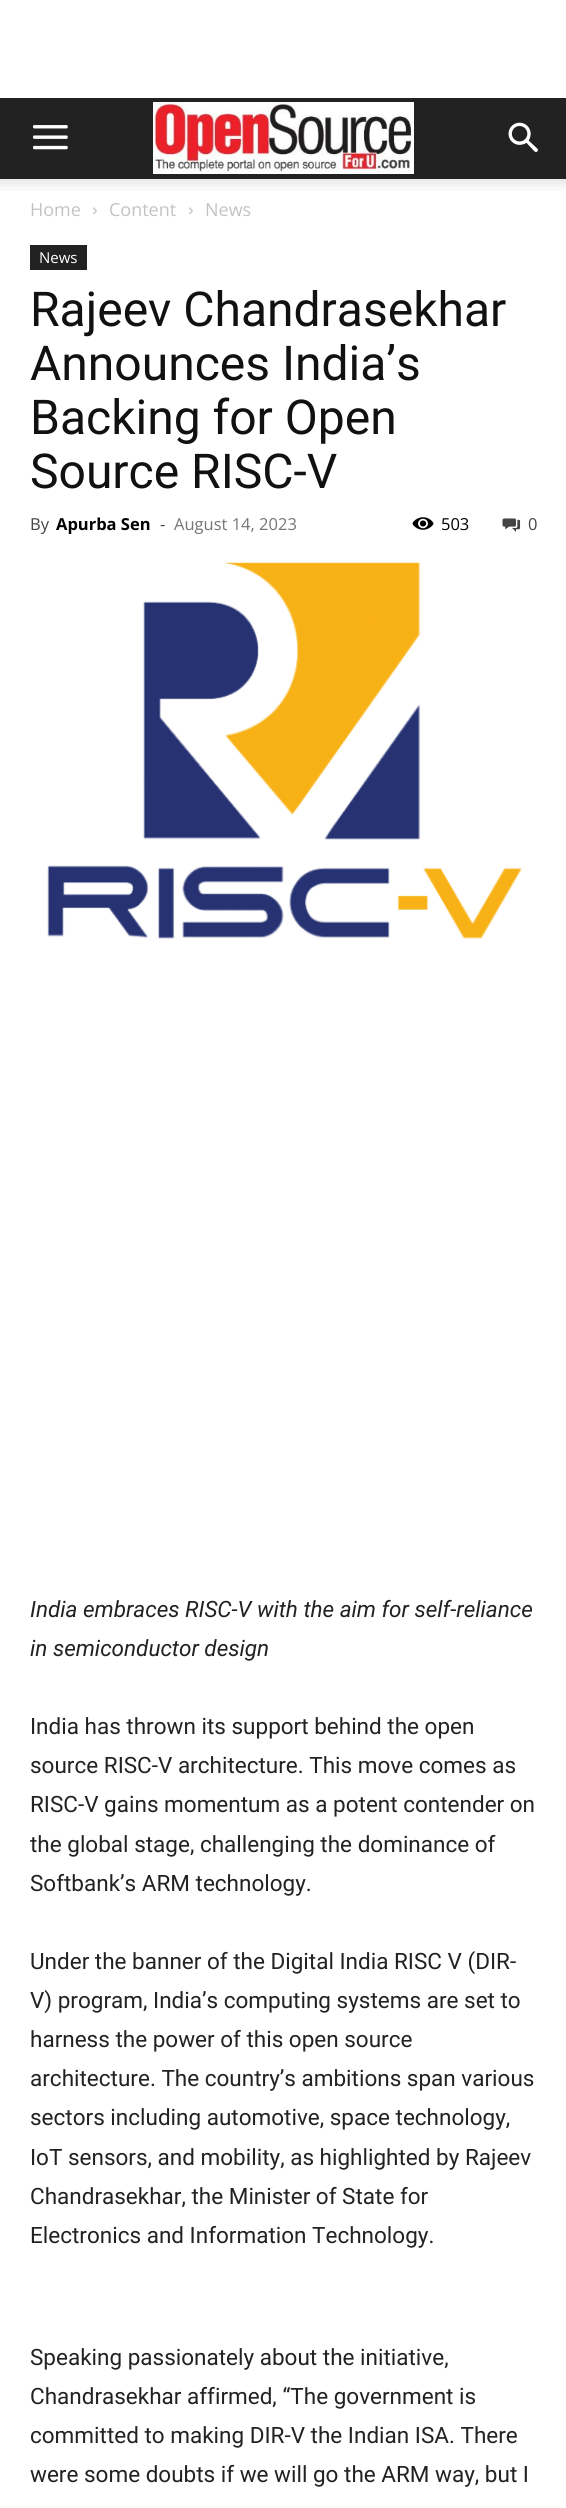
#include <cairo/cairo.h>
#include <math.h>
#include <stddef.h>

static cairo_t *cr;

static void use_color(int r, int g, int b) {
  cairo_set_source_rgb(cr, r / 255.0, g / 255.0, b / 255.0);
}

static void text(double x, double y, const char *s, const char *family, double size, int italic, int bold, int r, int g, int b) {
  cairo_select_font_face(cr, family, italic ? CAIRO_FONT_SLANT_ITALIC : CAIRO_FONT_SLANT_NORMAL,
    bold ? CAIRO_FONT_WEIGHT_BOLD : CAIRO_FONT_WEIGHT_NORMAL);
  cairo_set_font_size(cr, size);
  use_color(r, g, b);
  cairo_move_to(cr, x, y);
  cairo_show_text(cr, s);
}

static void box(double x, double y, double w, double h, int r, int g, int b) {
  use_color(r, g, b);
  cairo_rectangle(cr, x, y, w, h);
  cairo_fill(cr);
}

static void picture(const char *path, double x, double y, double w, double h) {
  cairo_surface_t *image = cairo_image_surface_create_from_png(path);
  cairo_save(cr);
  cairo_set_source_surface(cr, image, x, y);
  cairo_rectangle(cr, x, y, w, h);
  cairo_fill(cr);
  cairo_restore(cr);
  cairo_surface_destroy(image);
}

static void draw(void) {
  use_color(255, 255, 255);
  cairo_paint(cr);
  box(0, 98, 566, 81, 34, 34, 34);
  picture("img_01.png", 33, 125, 35, 25);
  picture("img_02.png", 153, 102, 261, 72);
  picture("img_03.png", 508, 122, 30, 30);
  picture("img_04.png", 0, 179, 566, 12);
  picture("img_05.png", 93, 207, 4, 8);
  picture("img_05.png", 189, 207, 4, 8);
  box(30, 245, 57, 25, 34, 34, 34);
  picture("img_06.png", 412, 517, 22, 13);
  picture("img_07.png", 502, 518, 19, 14);
  picture("img_08.png", 47, 562, 476, 377);
  text(30, 216, "Home", "Open Sans", 18, 0, 0, 195, 195, 195);
  text(109, 216, "Content", "Open Sans", 18, 0, 0, 195, 195, 195);
  text(205, 216, "News", "Open Sans", 18, 0, 0, 195, 195, 195);
  text(39, 263, "News", "Open Sans", 15, 0, 0, 255, 255, 255);
  text(30, 326, "Rajeev Chandrasekhar", "Roboto", 48, 0, 0, 17, 17, 17);
  text(30, 380, "Announces India’s", "Roboto", 48, 0, 0, 17, 17, 17);
  text(30, 434, "Backing for Open", "Roboto", 48, 0, 0, 17, 17, 17);
  text(30, 488, "Source RISC-V", "Roboto", 48, 0, 0, 17, 17, 17);
  text(30, 530, "By", "Open Sans", 16.5, 0, 0, 68, 68, 68);
  text(56, 530, "Apurba Sen", "Open Sans", 16.5, 0, 1, 0, 0, 0);
  text(160, 530, "-", "Open Sans", 16.5, 0, 0, 68, 68, 68);
  text(174, 530, "August 14, 2023", "Open Sans", 16.5, 0, 0, 118, 118, 118);
  text(441, 530, "503", "Open Sans", 16.5, 0, 0, 0, 0, 0);
  text(528, 530, "0", "Open Sans", 16.5, 0, 0, 68, 68, 68);
  text(30, 1617, "India embraces RISC-V with the aim for self-reliance", "Roboto", 22.5, 1, 0, 34, 34, 34);
  text(30, 1656, "in semiconductor design", "Roboto", 22.5, 1, 0, 34, 34, 34);
  text(30, 1734, "India has thrown its support behind the open", "Roboto", 22.5, 0, 0, 34, 34, 34);
  text(30, 1773, "source RISC-V architecture. This move comes as", "Roboto", 22.5, 0, 0, 34, 34, 34);
  text(30, 1812, "RISC-V gains momentum as a potent contender on", "Roboto", 22.5, 0, 0, 34, 34, 34);
  text(30, 1852, "the global stage, challenging the dominance of", "Roboto", 22.5, 0, 0, 34, 34, 34);
  text(30, 1891, "Softbank’s ARM technology.", "Roboto", 22.5, 0, 0, 34, 34, 34);
  text(30, 1969, "Under the banner of the Digital India RISC V (DIR-", "Roboto", 22.5, 0, 0, 34, 34, 34);
  text(30, 2008, "V) program, India’s computing systems are set to", "Roboto", 22.5, 0, 0, 34, 34, 34);
  text(30, 2047, "harness the power of this open source", "Roboto", 22.5, 0, 0, 34, 34, 34);
  text(30, 2086, "architecture. The country’s ambitions span various", "Roboto", 22.5, 0, 0, 34, 34, 34);
  text(30, 2125, "sectors including automotive, space technology,", "Roboto", 22.5, 0, 0, 34, 34, 34);
  text(30, 2165, "IoT sensors, and mobility, as highlighted by Rajeev", "Roboto", 22.5, 0, 0, 34, 34, 34);
  text(30, 2204, "Chandrasekhar, the Minister of State for", "Roboto", 22.5, 0, 0, 34, 34, 34);
  text(30, 2243, "Electronics and Information Technology.", "Roboto", 22.5, 0, 0, 34, 34, 34);
  text(30, 2365, "Speaking passionately about the initiative,", "Roboto", 22.5, 0, 0, 34, 34, 34);
  text(30, 2404, "Chandrasekhar affirmed, “The government is", "Roboto", 22.5, 0, 0, 34, 34, 34);
  text(30, 2443, "committed to making DIR-V the Indian ISA. There", "Roboto", 22.5, 0, 0, 34, 34, 34);
  text(30, 2482, "were some doubts if we will go the ARM way, but I", "Roboto", 22.5, 0, 0, 34, 34, 34);
}

int main(void) {
  cairo_surface_t *surface = cairo_image_surface_create(CAIRO_FORMAT_RGB24, 566, 2508);
  cr = cairo_create(surface);
  cairo_font_options_t *options = cairo_font_options_create();
  cairo_font_options_set_hint_metrics(options, CAIRO_HINT_METRICS_OFF);
  cairo_font_options_set_hint_style(options, CAIRO_HINT_STYLE_NONE);
  cairo_set_font_options(cr, options);
  cairo_set_miter_limit(cr, 4);
  draw();
  cairo_surface_write_to_png(surface, "out.png");
  cairo_font_options_destroy(options);
  cairo_destroy(cr);
  cairo_surface_destroy(surface);
  return 0;
}
